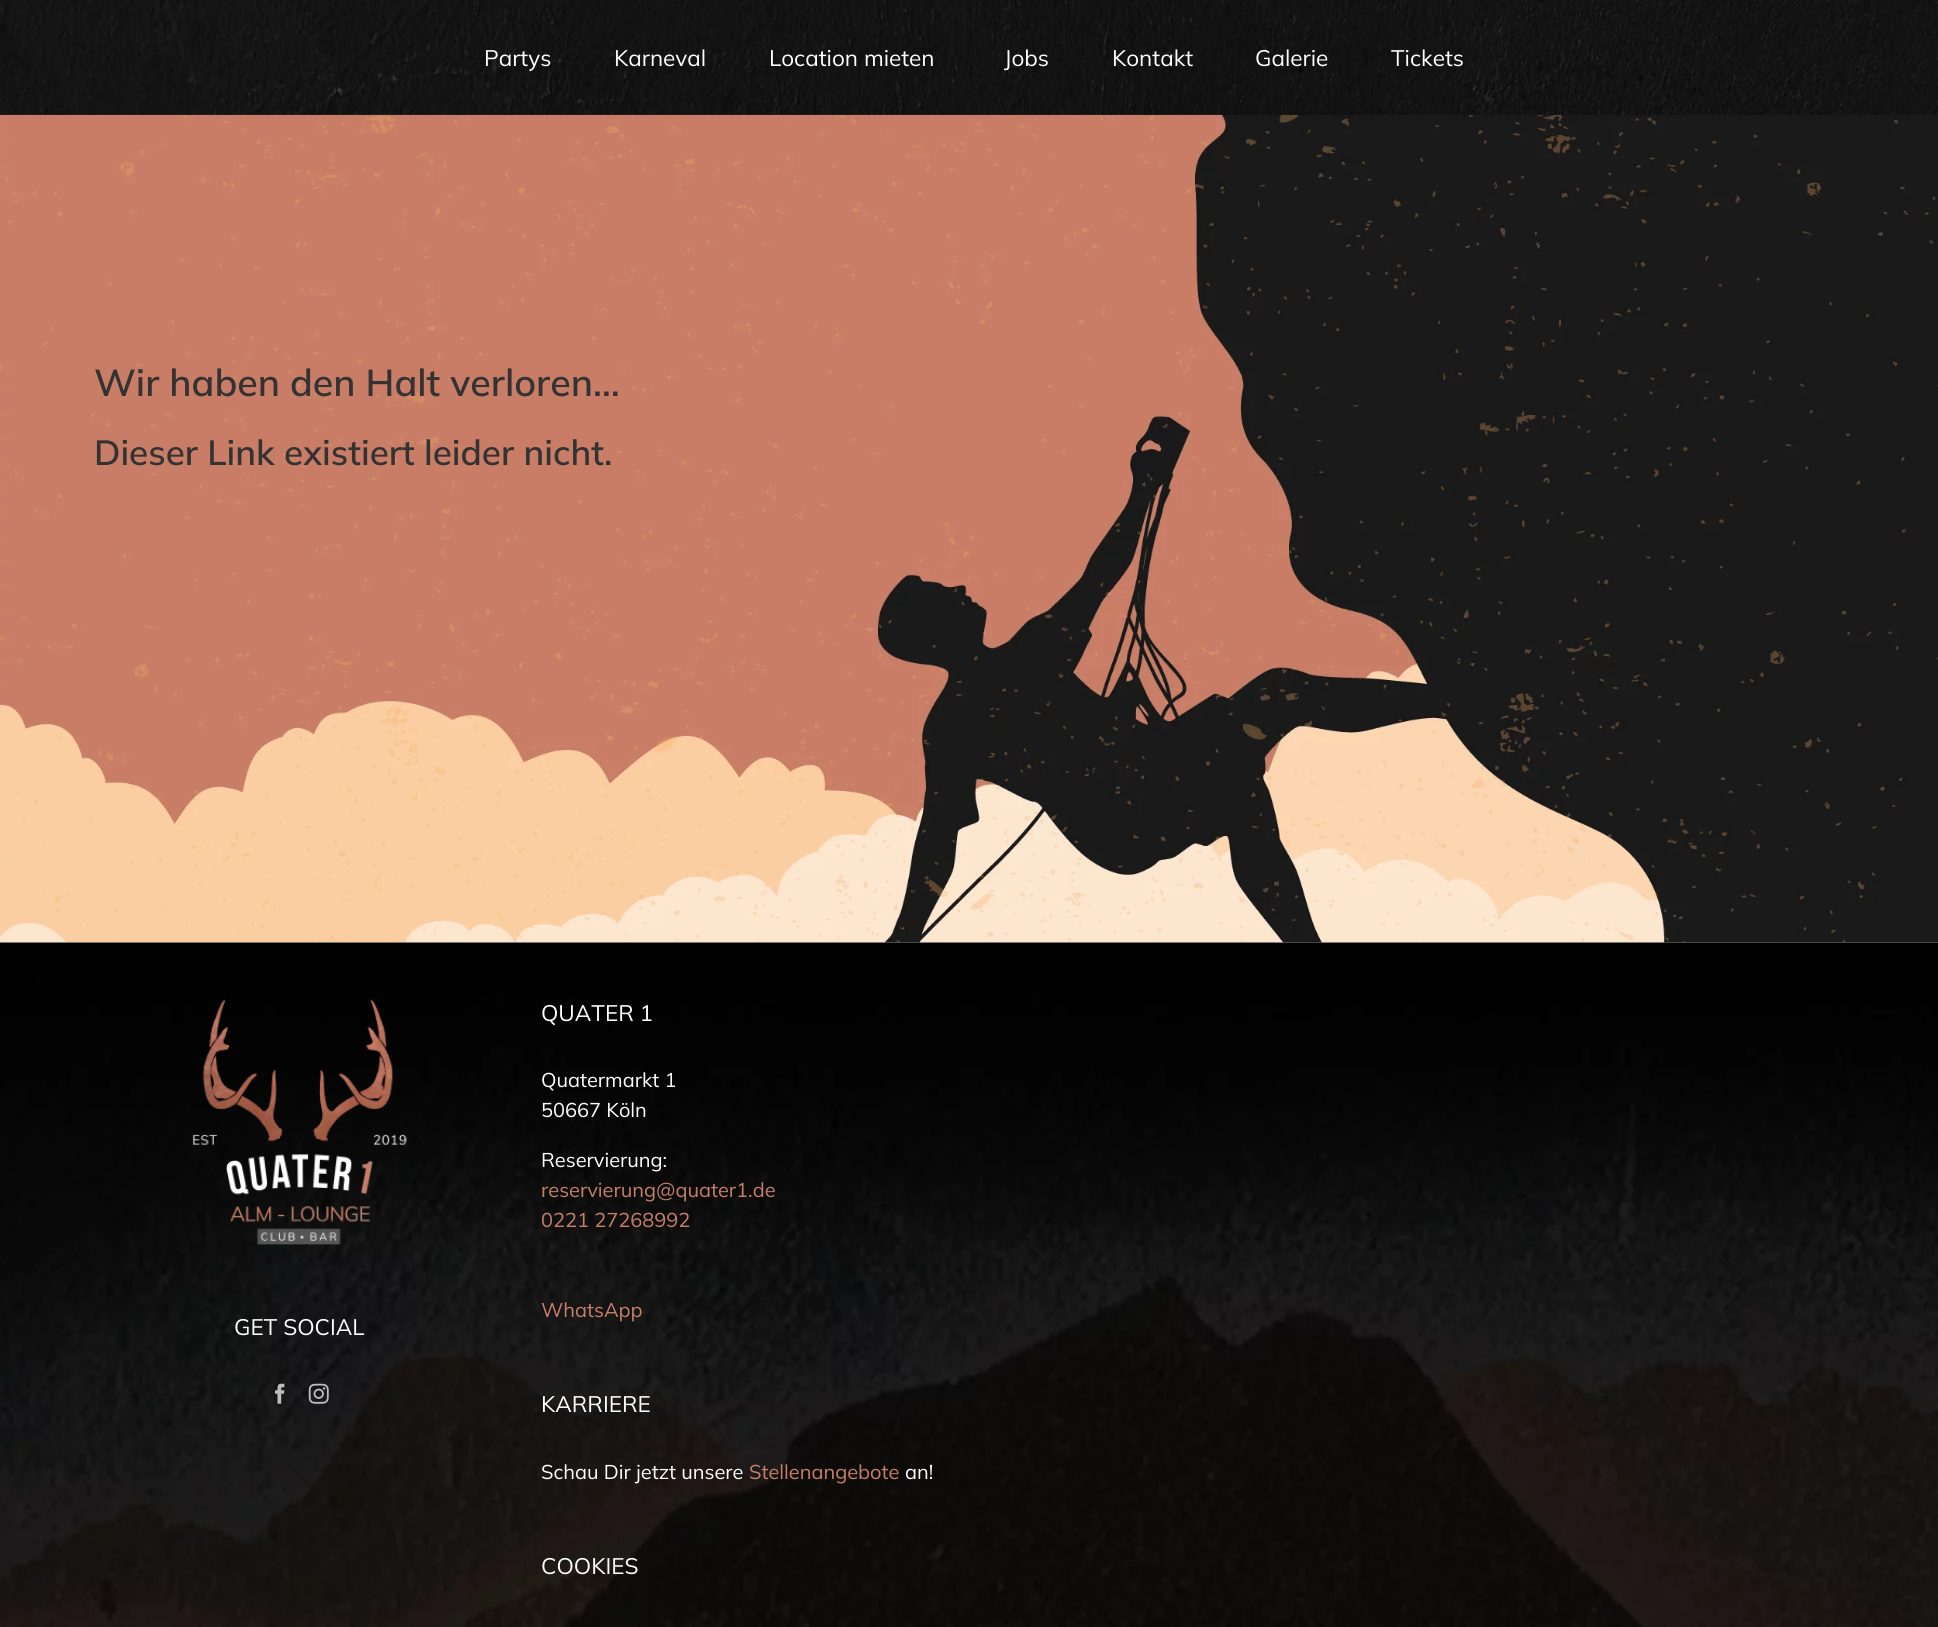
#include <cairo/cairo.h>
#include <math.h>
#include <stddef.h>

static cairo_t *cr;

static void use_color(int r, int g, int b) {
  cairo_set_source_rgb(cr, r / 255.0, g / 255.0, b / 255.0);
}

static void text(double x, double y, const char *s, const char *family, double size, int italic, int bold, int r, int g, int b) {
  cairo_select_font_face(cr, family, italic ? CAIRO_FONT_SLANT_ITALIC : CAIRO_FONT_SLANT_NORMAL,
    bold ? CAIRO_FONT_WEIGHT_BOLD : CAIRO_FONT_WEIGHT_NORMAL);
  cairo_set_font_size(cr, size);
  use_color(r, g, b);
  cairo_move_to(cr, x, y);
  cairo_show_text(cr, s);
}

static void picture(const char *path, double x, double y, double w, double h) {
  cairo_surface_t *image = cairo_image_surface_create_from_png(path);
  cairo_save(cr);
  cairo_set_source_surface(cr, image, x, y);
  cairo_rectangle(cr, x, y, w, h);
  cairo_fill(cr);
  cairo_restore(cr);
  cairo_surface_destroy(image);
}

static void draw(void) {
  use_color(255, 255, 255);
  cairo_paint(cr);
  picture("img_02.png", 0, 114, 1938, 829);
  picture("img_01.png", 0, 0, 1938, 115);
  picture("img_03.png", 0, 942, 1938, 685);
  picture("img_04.png", 192, 999, 215, 246);
  picture("img_05.png", 275, 1383, 10, 21);
  picture("img_06.png", 308, 1383, 21, 21);
  text(484, 66, "Partys", "Mulish", 22.5, 0, 0, 255, 255, 255);
  text(614, 66, "Karneval", "Mulish", 22.5, 0, 0, 255, 255, 255);
  text(769, 66, "Location mieten", "Mulish", 22.5, 0, 0, 255, 255, 255);
  text(1004, 66, "Jobs", "Mulish", 22.5, 0, 0, 255, 255, 255);
  text(1112, 66, "Kontakt", "Mulish", 22.5, 0, 0, 255, 255, 255);
  text(1255, 66, "Galerie", "Mulish", 22.5, 0, 0, 255, 255, 255);
  text(1391, 66, "Tickets", "Mulish", 22.5, 0, 0, 255, 255, 255);
  text(94, 396, "Wir haben den Halt verloren…", "Mulish SemiBold", 37.5, 0, 0, 51, 51, 51);
  text(94, 465, "Dieser Link existiert leider nicht.", "Mulish SemiBold", 35, 0, 0, 51, 51, 51);
  text(234, 1335, "GET SOCIAL", "Mulish", 22.5, 0, 0, 255, 255, 255);
  text(541, 1021, "QUATER 1", "Mulish", 22.5, 0, 0, 255, 255, 255);
  text(541, 1087, "Quatermarkt 1", "Mulish", 20, 0, 0, 255, 255, 255);
  text(541, 1117, "50667 Köln", "Mulish", 20, 0, 0, 255, 255, 255);
  text(541, 1167, "Reservierung:", "Mulish", 20, 0, 0, 255, 255, 255);
  text(541, 1197, "reservierung@quater1.de", "Mulish", 20, 0, 0, 200, 127, 103);
  text(541, 1227, "0221 27268992", "Mulish", 20, 0, 0, 200, 127, 103);
  text(541, 1317, "WhatsApp", "Mulish", 20, 0, 0, 200, 127, 103);
  text(541, 1412, "KARRIERE", "Mulish", 22.5, 0, 0, 255, 255, 255);
  text(541, 1479, "Schau Dir jetzt unsere", "Mulish", 20, 0, 0, 255, 255, 255);
  text(749, 1479, "Stellenangebote", "Mulish", 20, 0, 0, 200, 127, 103);
  text(905, 1479, "an!", "Mulish", 20, 0, 0, 255, 255, 255);
  text(541, 1574, "COOKIES", "Mulish", 22.5, 0, 0, 255, 255, 255);
}

int main(void) {
  cairo_surface_t *surface = cairo_image_surface_create(CAIRO_FORMAT_RGB24, 1938, 1627);
  cr = cairo_create(surface);
  cairo_font_options_t *options = cairo_font_options_create();
  cairo_font_options_set_hint_metrics(options, CAIRO_HINT_METRICS_OFF);
  cairo_font_options_set_hint_style(options, CAIRO_HINT_STYLE_NONE);
  cairo_set_font_options(cr, options);
  cairo_set_miter_limit(cr, 4);
  draw();
  cairo_surface_write_to_png(surface, "out.png");
  cairo_font_options_destroy(options);
  cairo_destroy(cr);
  cairo_surface_destroy(surface);
  return 0;
}
